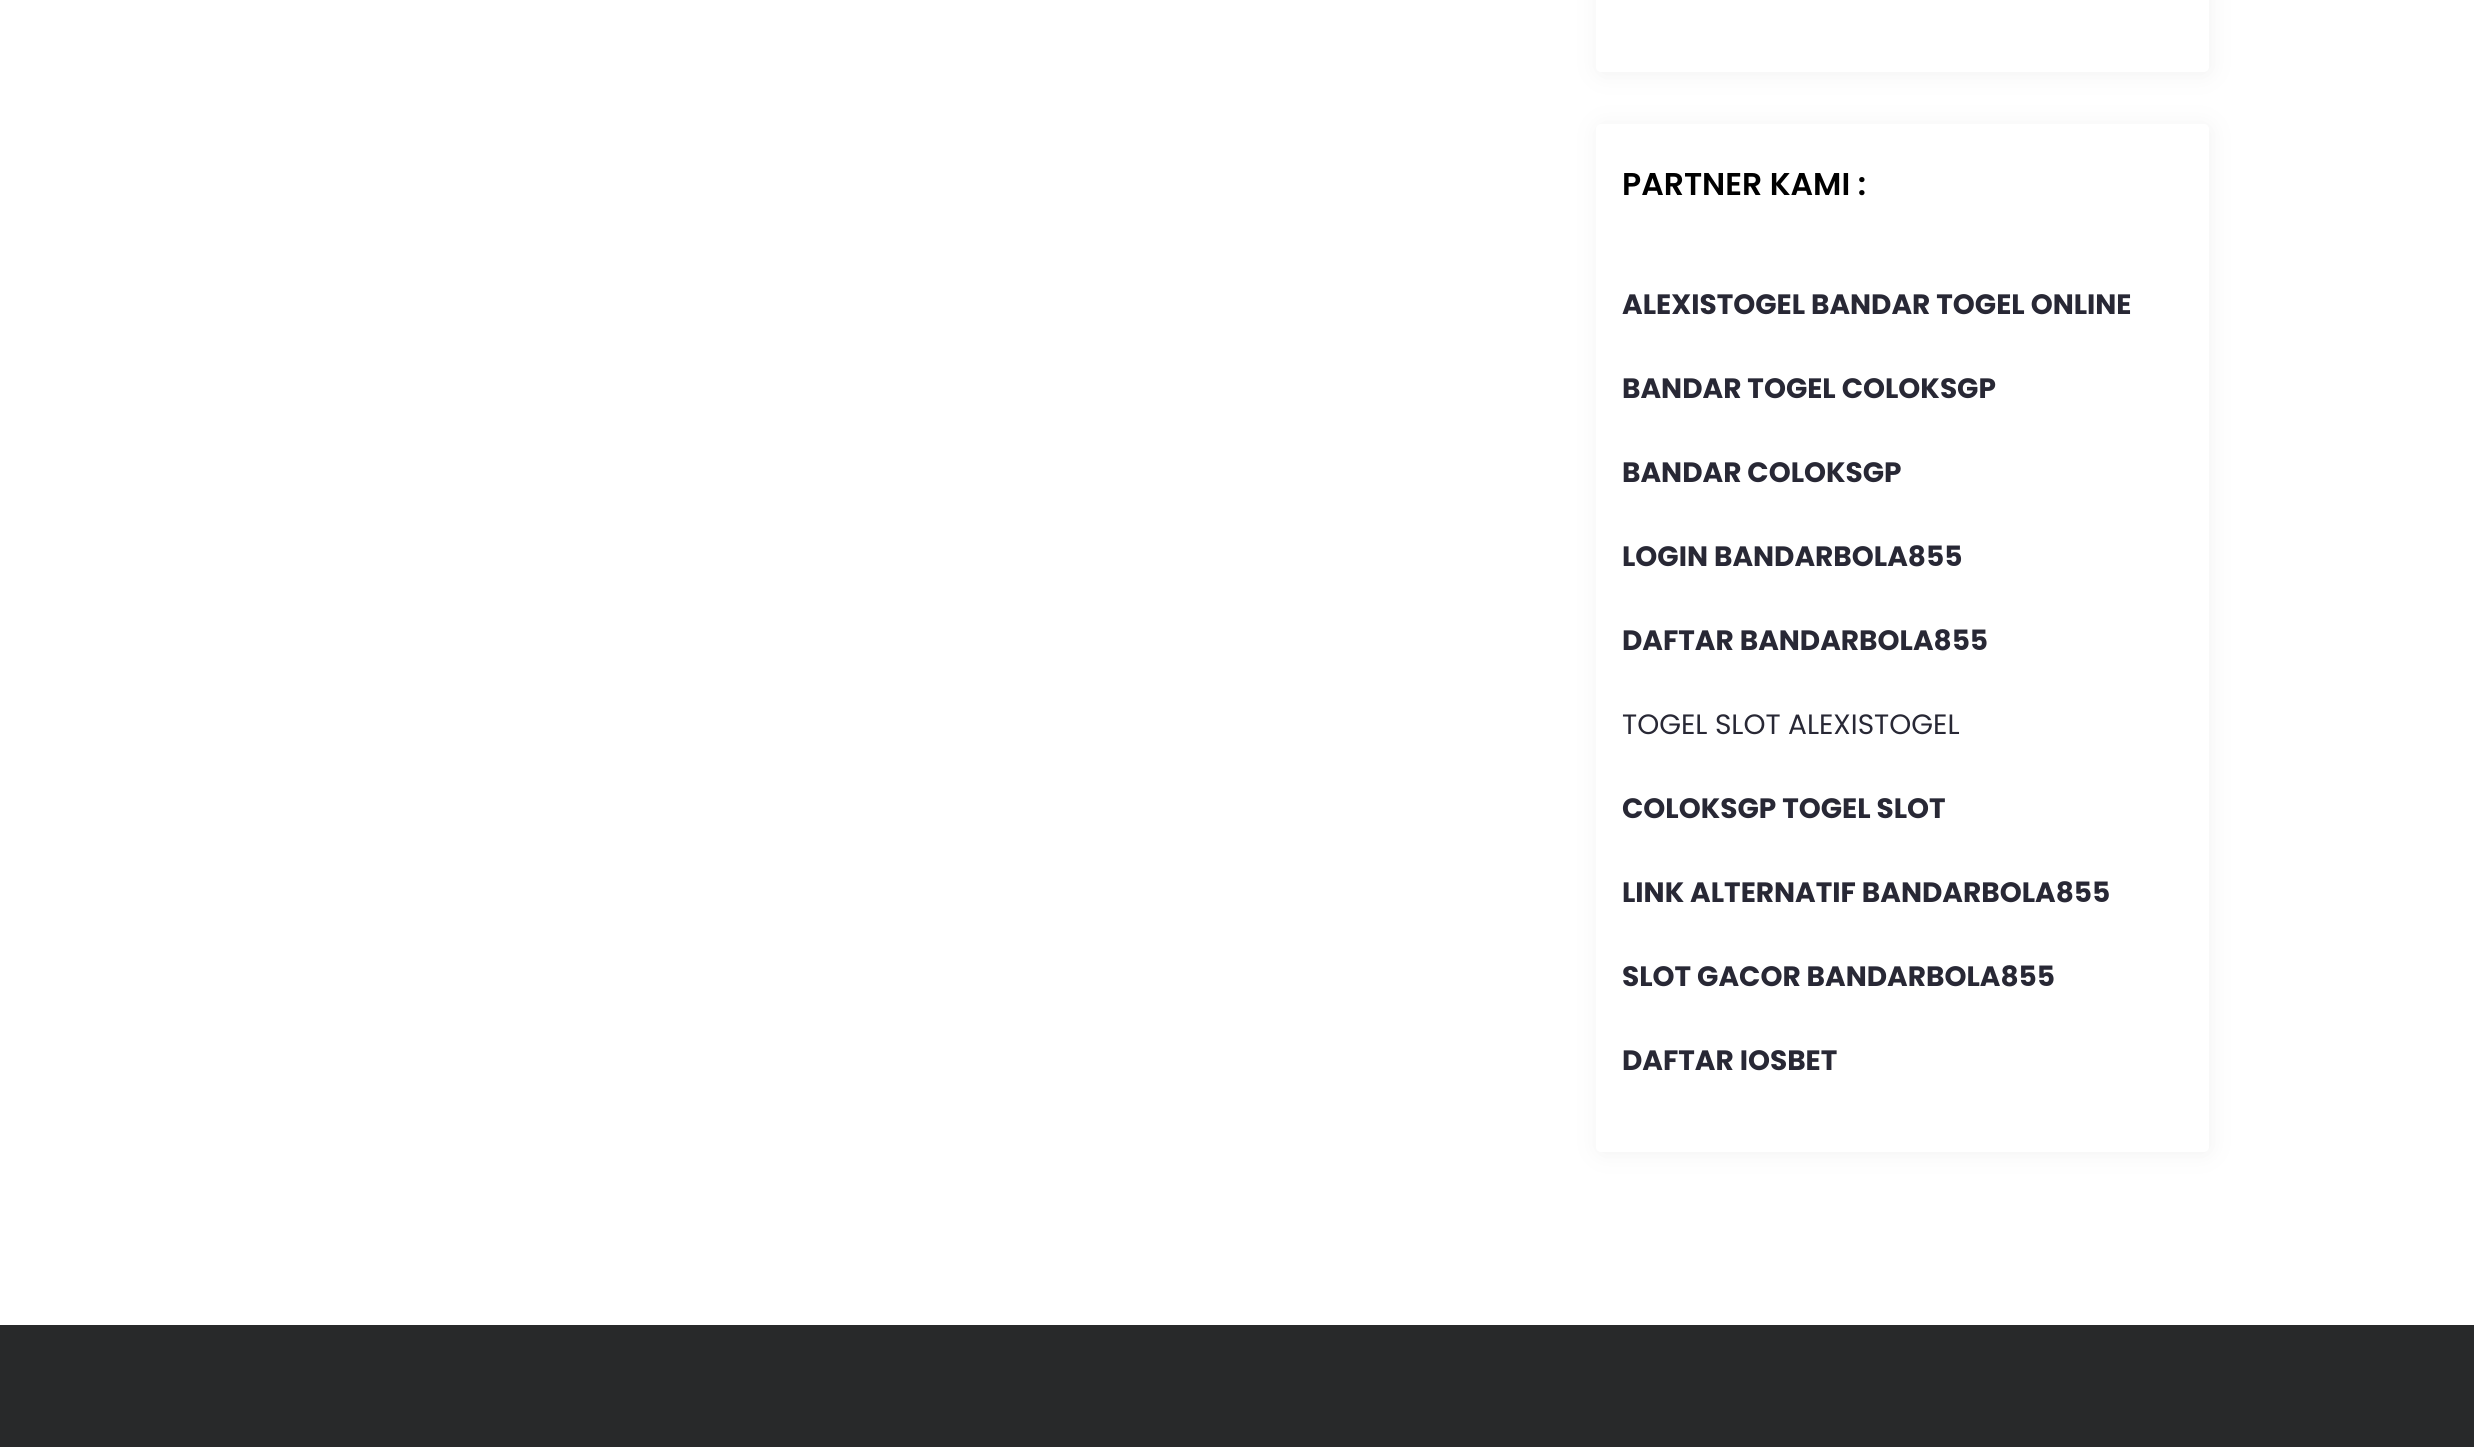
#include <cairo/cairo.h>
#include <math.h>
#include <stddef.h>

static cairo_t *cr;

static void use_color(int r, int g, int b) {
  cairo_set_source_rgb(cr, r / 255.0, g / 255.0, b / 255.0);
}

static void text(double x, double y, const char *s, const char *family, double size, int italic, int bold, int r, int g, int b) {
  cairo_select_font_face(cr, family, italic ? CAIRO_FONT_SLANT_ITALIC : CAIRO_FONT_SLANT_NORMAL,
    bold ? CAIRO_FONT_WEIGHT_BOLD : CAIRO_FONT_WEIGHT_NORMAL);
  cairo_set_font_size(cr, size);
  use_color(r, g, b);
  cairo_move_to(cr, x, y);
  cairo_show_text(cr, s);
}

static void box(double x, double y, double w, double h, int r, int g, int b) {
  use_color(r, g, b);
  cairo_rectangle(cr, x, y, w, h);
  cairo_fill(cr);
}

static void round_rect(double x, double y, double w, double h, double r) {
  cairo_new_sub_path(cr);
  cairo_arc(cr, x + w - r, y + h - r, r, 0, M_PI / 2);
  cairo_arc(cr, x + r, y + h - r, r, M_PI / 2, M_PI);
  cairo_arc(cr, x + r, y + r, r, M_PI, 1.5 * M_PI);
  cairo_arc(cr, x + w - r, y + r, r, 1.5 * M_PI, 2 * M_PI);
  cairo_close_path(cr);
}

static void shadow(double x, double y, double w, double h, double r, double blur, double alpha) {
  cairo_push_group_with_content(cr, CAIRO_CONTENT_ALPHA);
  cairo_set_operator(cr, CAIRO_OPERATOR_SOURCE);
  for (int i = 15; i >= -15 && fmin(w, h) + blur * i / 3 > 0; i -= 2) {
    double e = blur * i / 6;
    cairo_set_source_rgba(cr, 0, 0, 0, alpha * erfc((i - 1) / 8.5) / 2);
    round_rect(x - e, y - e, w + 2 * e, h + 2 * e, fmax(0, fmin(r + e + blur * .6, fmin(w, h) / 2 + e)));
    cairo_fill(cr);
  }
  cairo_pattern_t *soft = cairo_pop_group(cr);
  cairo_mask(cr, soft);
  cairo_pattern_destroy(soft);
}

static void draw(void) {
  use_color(255, 255, 255);
  cairo_paint(cr);
  use_color(242, 242, 242);
  shadow(1598, -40, 612, 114, 5, 11.5, 1);
  use_color(255, 255, 255);
  round_rect(1596, -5, 613, 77, 5);
  cairo_fill(cr);
  use_color(242, 242, 242);
  shadow(1598, 126, 612, 1027, 5, 11.5, 1);
  use_color(255, 255, 255);
  round_rect(1596, 124, 613, 1028, 5);
  cairo_fill(cr);
  box(0, 1325, 2474, 122, 40, 41, 42);
  text(1622, 195, "PARTNER KAMI :", "Poppins SemiBold", 31.5, 0, 0, 0, 0, 0);
  text(1622, 314, "ALEXISTOGEL BANDAR TOGEL ONLINE", "Poppins", 28, 0, 1, 40, 40, 53);
  text(1622, 398, "BANDAR TOGEL COLOKSGP", "Poppins", 28, 0, 1, 40, 40, 53);
  text(1622, 482, "BANDAR COLOKSGP", "Poppins", 28, 0, 1, 40, 40, 53);
  text(1622, 566, "LOGIN BANDARBOLA855", "Poppins", 28, 0, 1, 40, 40, 53);
  text(1622, 650, "DAFTAR BANDARBOLA855", "Poppins", 28, 0, 1, 40, 40, 53);
  text(1622, 734, "TOGEL SLOT ALEXISTOGEL", "Poppins", 28, 0, 0, 40, 40, 53);
  text(1622, 818, "COLOKSGP TOGEL SLOT", "Poppins", 28, 0, 1, 40, 40, 53);
  text(1622, 902, "LINK ALTERNATIF BANDARBOLA855", "Poppins", 28, 0, 1, 40, 40, 53);
  text(1622, 986, "SLOT GACOR BANDARBOLA855", "Poppins", 28, 0, 1, 40, 40, 53);
  text(1622, 1070, "DAFTAR IOSBET", "Poppins", 28, 0, 1, 40, 40, 53);
}

int main(void) {
  cairo_surface_t *surface = cairo_image_surface_create(CAIRO_FORMAT_RGB24, 2474, 1447);
  cr = cairo_create(surface);
  cairo_font_options_t *options = cairo_font_options_create();
  cairo_font_options_set_hint_metrics(options, CAIRO_HINT_METRICS_OFF);
  cairo_font_options_set_hint_style(options, CAIRO_HINT_STYLE_NONE);
  cairo_set_font_options(cr, options);
  cairo_set_miter_limit(cr, 4);
  draw();
  cairo_surface_write_to_png(surface, "out.png");
  cairo_font_options_destroy(options);
  cairo_destroy(cr);
  cairo_surface_destroy(surface);
  return 0;
}
